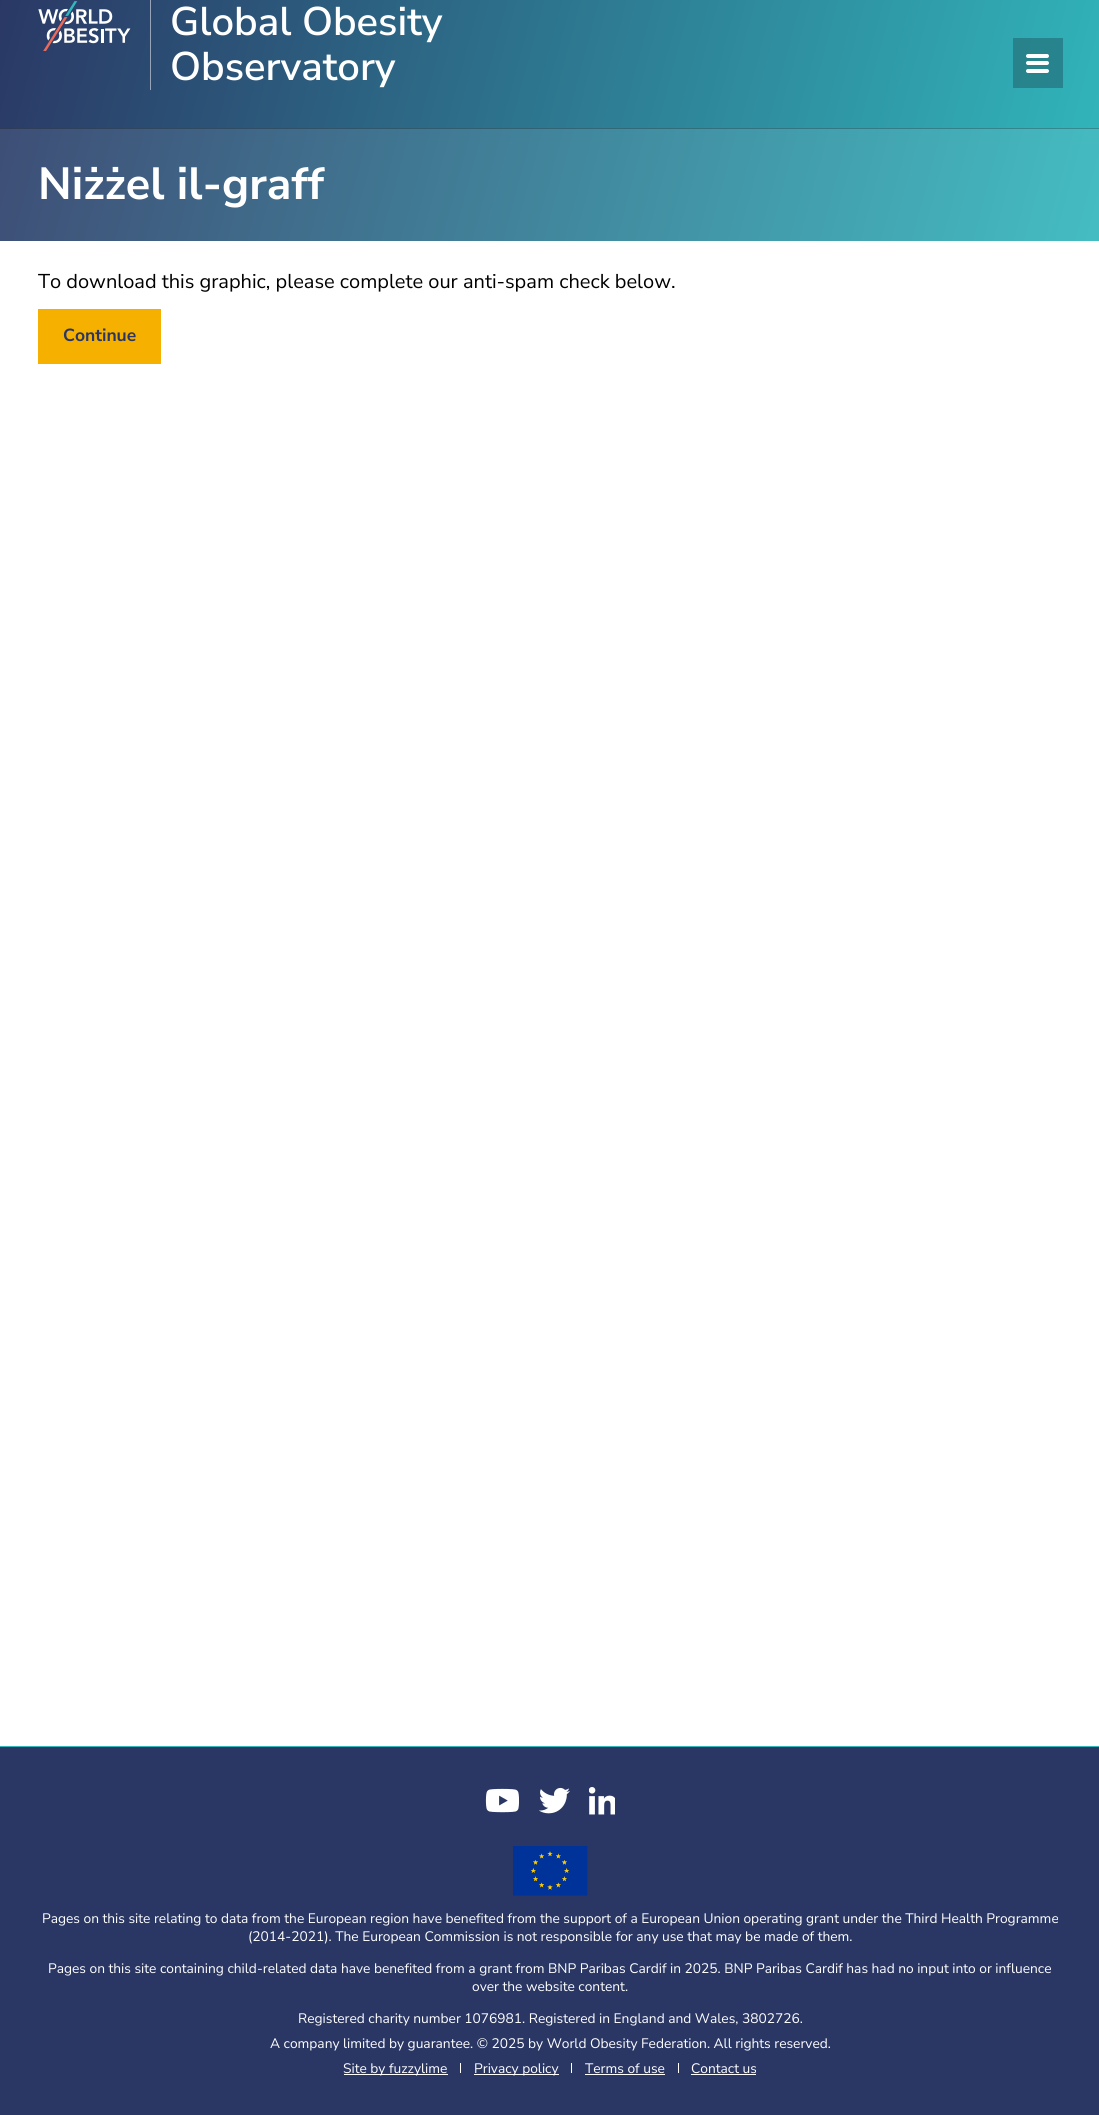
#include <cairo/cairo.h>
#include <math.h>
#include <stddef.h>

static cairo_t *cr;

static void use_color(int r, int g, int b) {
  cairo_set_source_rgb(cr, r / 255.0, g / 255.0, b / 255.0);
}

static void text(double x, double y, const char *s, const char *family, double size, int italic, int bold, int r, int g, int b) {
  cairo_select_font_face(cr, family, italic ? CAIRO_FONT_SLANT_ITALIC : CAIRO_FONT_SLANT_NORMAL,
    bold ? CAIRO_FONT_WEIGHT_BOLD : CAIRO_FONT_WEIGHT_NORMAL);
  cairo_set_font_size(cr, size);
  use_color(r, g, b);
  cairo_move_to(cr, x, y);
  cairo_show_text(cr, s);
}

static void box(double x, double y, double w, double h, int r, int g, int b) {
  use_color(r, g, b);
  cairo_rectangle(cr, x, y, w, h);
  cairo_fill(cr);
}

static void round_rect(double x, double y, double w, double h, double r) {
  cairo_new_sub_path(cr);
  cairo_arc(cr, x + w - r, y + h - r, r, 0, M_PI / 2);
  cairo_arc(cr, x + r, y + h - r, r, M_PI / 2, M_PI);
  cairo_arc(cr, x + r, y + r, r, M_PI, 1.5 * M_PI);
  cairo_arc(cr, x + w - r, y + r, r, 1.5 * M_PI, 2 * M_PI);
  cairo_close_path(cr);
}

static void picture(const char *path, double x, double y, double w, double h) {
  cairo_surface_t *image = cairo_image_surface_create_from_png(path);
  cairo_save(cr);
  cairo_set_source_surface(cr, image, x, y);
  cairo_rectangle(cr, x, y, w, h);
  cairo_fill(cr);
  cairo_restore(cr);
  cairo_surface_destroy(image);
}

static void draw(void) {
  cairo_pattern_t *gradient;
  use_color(255, 255, 255);
  cairo_paint(cr);
  gradient = cairo_pattern_create_linear(2, -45, 1098, 249);
  cairo_pattern_add_color_stop_rgba(gradient, 0, 0.165, 0.216, 0.392, 1);
  cairo_pattern_add_color_stop_rgba(gradient, 1, 0.192, 0.718, 0.737, 1);
  cairo_set_source(cr, gradient);
  cairo_pattern_destroy(gradient);
  cairo_rectangle(cr, 0, 0, 1099, 128);
  cairo_fill(cr);
  gradient = cairo_pattern_create_linear(2, -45, 1098, 249);
  cairo_pattern_add_color_stop_rgba(gradient, 0, 0.145, 0.424, 0.486, 1);
  cairo_pattern_add_color_stop_rgba(gradient, 1, 0.153, 0.522, 0.557, 1);
  cairo_set_source(cr, gradient);
  cairo_pattern_destroy(gradient);
  cairo_rectangle(cr, 1013, 38, 50, 50);
  cairo_fill(cr);
  gradient = cairo_pattern_create_linear(2, -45, 1098, 249);
  cairo_pattern_add_color_stop_rgba(gradient, 0, 0.243, 0.29, 0.451, 1);
  cairo_pattern_add_color_stop_rgba(gradient, 1, 0.267, 0.741, 0.761, 1);
  cairo_set_source(cr, gradient);
  cairo_pattern_destroy(gradient);
  cairo_rectangle(cr, 0, 129, 1099, 112);
  cairo_fill(cr);
  gradient = cairo_pattern_create_linear(2, -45, 1098, 249);
  cairo_pattern_add_color_stop_rgba(gradient, 0, 0.184, 0.22, 0.337, 1);
  cairo_pattern_add_color_stop_rgba(gradient, 1, 0.2, 0.557, 0.573, 1);
  cairo_set_source(cr, gradient);
  cairo_pattern_destroy(gradient);
  cairo_rectangle(cr, 0, 128, 1099, 1);
  cairo_fill(cr);
  picture("img_01.png", 38, 1, 93, 50);
  box(150, 0, 1, 90, 149, 164, 184);
  use_color(255, 255, 255);
  round_rect(1026, 54, 23, 4, 2);
  cairo_fill(cr);
  round_rect(1026, 61, 23, 4, 2);
  cairo_fill(cr);
  round_rect(1026, 69, 23, 4, 2);
  cairo_fill(cr);
  box(38, 309, 123, 55, 246, 177, 0);
  box(0, 1747, 1099, 368, 42, 55, 100);
  box(0, 1746, 1099, 1, 49, 183, 188);
  picture("img_02.png", 485, 1788, 34, 25);
  picture("img_03.png", 539, 1787, 31, 27);
  picture("img_04.png", 589, 1787, 26, 28);
  picture("img_05.png", 513, 1846, 75, 50);
  box(344, 2074, 104, 1, 255, 255, 255);
  box(460, 2063, 1, 10, 255, 255, 255);
  box(474, 2074, 85, 1, 255, 255, 255);
  box(571, 2063, 1, 10, 255, 255, 255);
  box(585, 2074, 80, 1, 255, 255, 255);
  box(678, 2063, 1, 10, 255, 255, 255);
  box(691, 2074, 65, 1, 255, 255, 255);
  text(170, 35, "Global Obesity", "Nunito Sans SemiBold", 40, 0, 0, 255, 255, 255);
  text(170, 80, "Observatory", "Nunito Sans SemiBold", 40, 0, 0, 255, 255, 255);
  text(38, 199, "Niżżel il-graff", "Nunito Sans", 45, 0, 1, 255, 255, 255);
  text(38, 288, "To download this graphic, please complete our anti-spam check below.", "Nunito Sans", 20, 0, 0, 0, 0, 0);
  text(63, 341, "Continue", "Nunito Sans", 17.5, 0, 1, 42, 55, 100);
  text(42, 1923, "Pages on this site relating to data from the European region have benefited from the support of a European Union operating grant under the Third Health Programme", "Nunito Sans", 13.75, 0, 0, 255, 255, 255);
  text(248, 1941, "(2014-2021). The European Commission is not responsible for any use that may be made of them.", "Nunito Sans", 13.75, 0, 0, 255, 255, 255);
  text(48, 1973, "Pages on this site containing child-related data have benefited from a grant from BNP Paribas Cardif in 2025. BNP Paribas Cardif has had no input into or influence", "Nunito Sans", 13.75, 0, 0, 255, 255, 255);
  text(472, 1991, "over the website content.", "Nunito Sans", 13.75, 0, 0, 255, 255, 255);
  text(298, 2023, "Registered charity number 1076981. Registered in England and Wales, 3802726.", "Nunito Sans", 13.75, 0, 0, 255, 255, 255);
  text(270, 2048, "A company limited by guarantee. © 2025 by World Obesity Federation. All rights reserved.", "Nunito Sans", 13.75, 0, 0, 255, 255, 255);
  text(343, 2073, "Site by fuzzylime", "Nunito Sans", 13.75, 0, 0, 255, 255, 255);
  text(474, 2073, "Privacy policy", "Nunito Sans", 13.75, 0, 0, 255, 255, 255);
  text(585, 2073, "Terms of use", "Nunito Sans", 13.75, 0, 0, 255, 255, 255);
  text(691, 2073, "Contact us", "Nunito Sans", 13.75, 0, 0, 255, 255, 255);
}

int main(void) {
  cairo_surface_t *surface = cairo_image_surface_create(CAIRO_FORMAT_RGB24, 1099, 2115);
  cr = cairo_create(surface);
  cairo_font_options_t *options = cairo_font_options_create();
  cairo_font_options_set_hint_metrics(options, CAIRO_HINT_METRICS_OFF);
  cairo_font_options_set_hint_style(options, CAIRO_HINT_STYLE_NONE);
  cairo_set_font_options(cr, options);
  cairo_set_miter_limit(cr, 4);
  draw();
  cairo_surface_write_to_png(surface, "out.png");
  cairo_font_options_destroy(options);
  cairo_destroy(cr);
  cairo_surface_destroy(surface);
  return 0;
}
